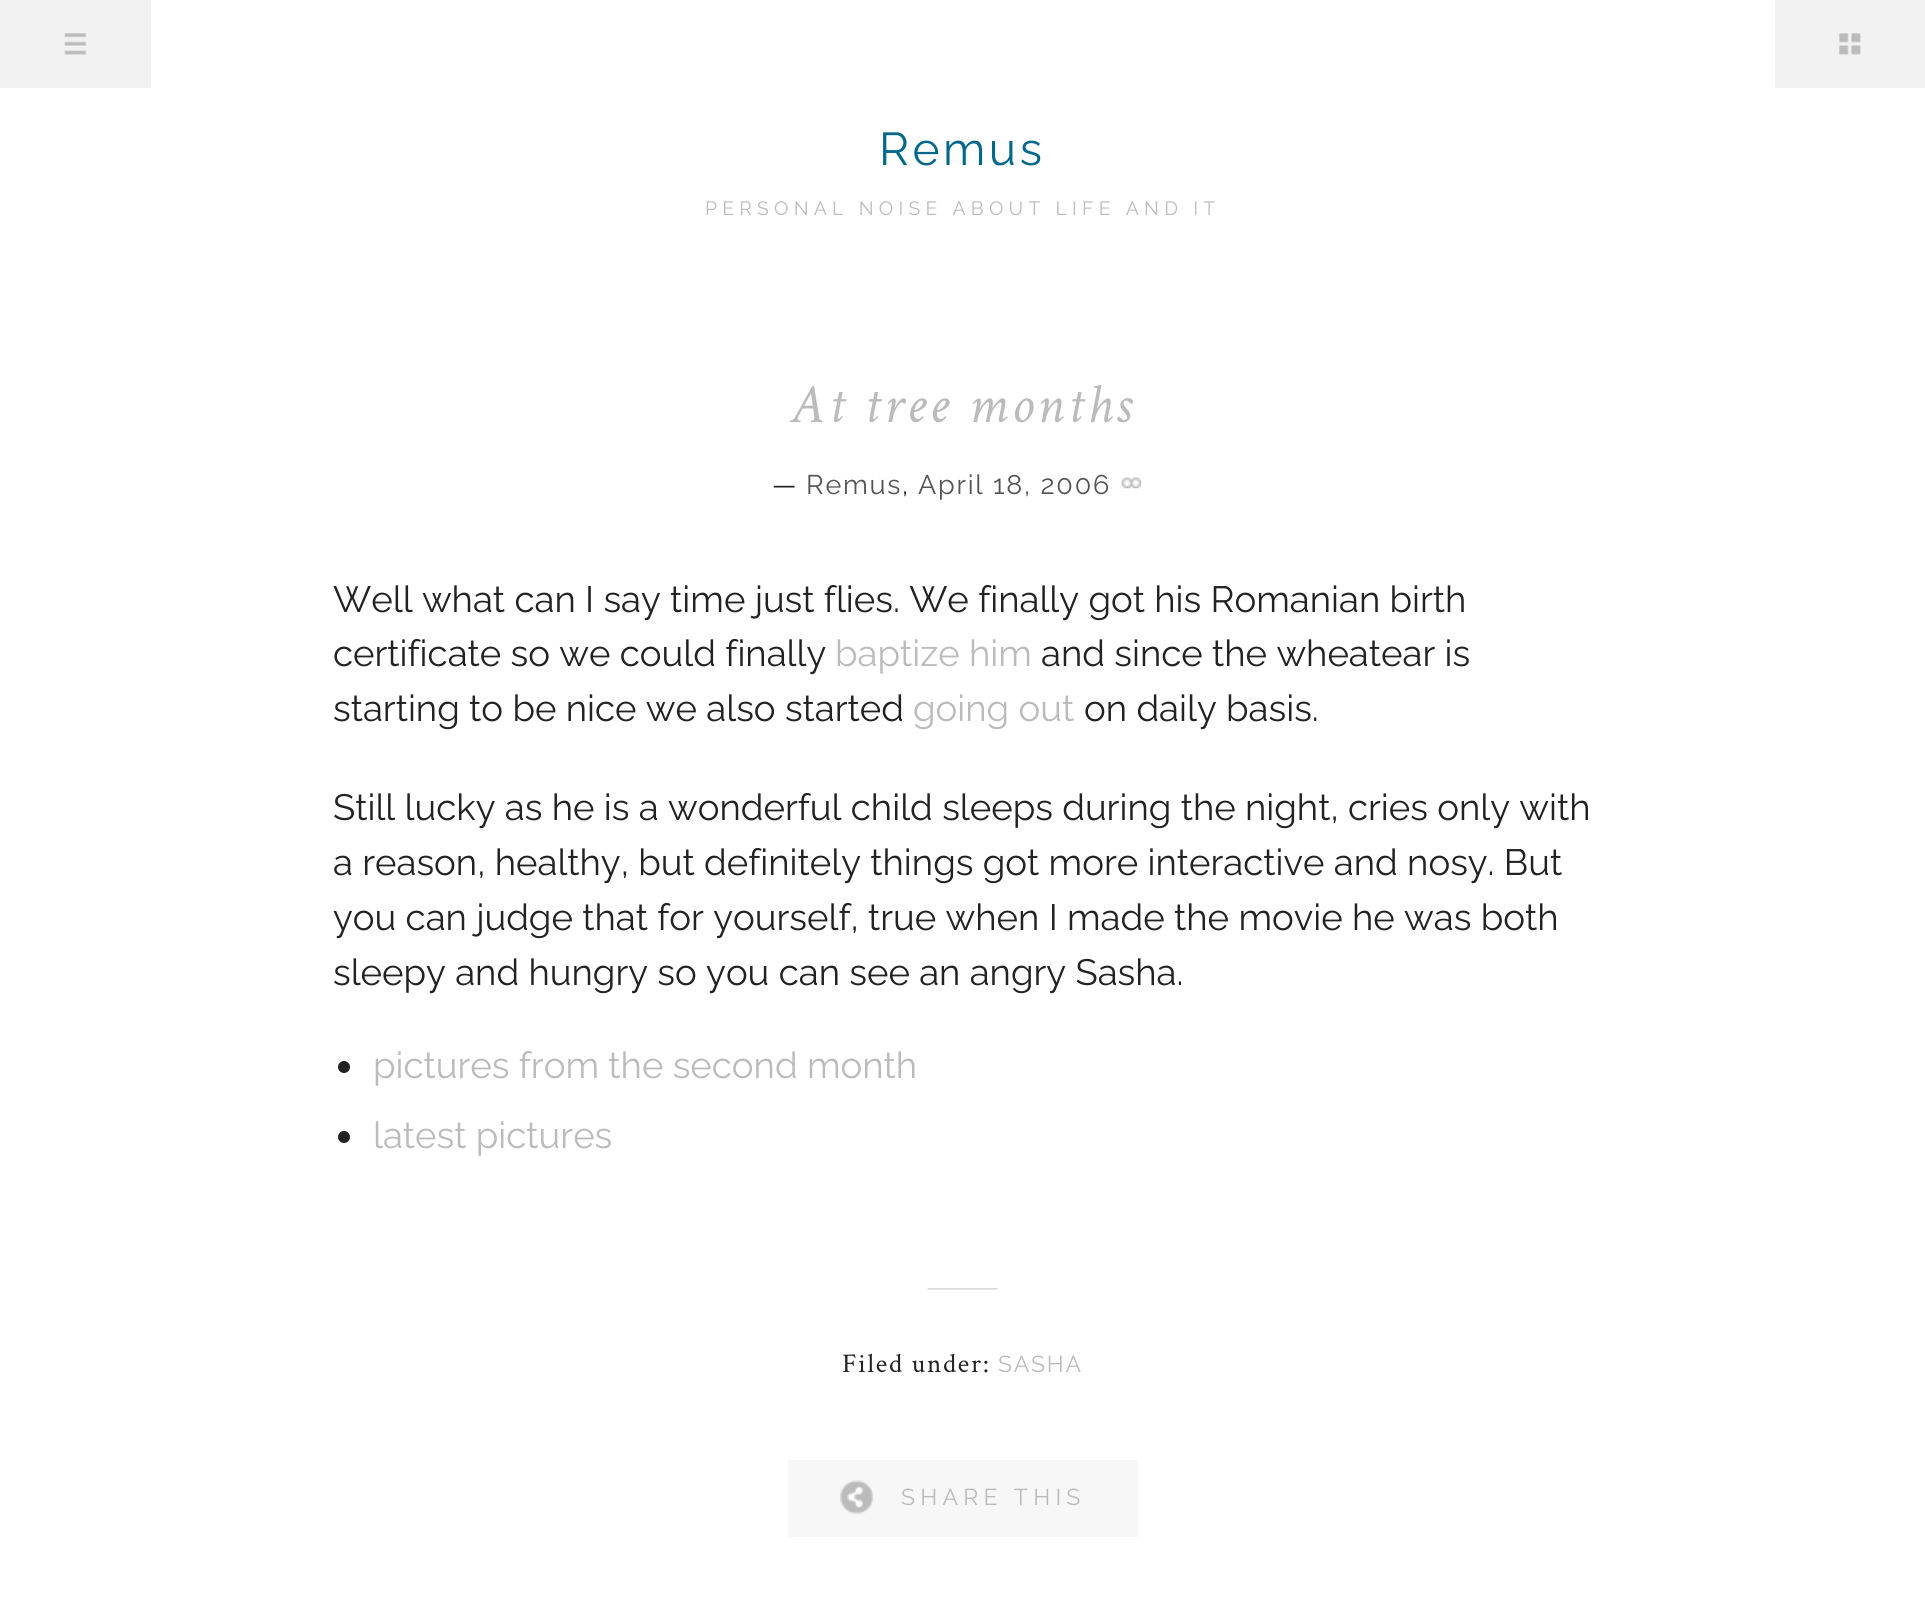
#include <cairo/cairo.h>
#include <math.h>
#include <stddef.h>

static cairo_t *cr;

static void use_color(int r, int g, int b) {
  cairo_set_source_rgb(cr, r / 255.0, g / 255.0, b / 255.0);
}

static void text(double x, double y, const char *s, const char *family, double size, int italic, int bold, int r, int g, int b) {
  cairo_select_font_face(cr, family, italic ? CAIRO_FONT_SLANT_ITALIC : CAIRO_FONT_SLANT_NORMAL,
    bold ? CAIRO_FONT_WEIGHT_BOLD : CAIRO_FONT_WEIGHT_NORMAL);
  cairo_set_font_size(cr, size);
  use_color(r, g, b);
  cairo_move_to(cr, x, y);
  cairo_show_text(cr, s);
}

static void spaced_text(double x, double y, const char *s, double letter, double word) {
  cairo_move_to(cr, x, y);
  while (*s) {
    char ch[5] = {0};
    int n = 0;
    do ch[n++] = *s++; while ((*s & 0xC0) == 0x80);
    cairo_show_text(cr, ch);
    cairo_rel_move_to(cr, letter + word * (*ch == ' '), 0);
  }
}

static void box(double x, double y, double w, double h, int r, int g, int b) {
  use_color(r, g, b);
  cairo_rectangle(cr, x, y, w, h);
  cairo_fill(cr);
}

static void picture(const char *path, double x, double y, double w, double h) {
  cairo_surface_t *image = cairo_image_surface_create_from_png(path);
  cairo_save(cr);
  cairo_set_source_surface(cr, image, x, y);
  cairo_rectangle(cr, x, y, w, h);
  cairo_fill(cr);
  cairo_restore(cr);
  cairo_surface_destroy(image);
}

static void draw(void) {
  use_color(255, 255, 255);
  cairo_paint(cr);
  box(0, 0, 151, 88, 242, 242, 242);
  picture("img_01.png", 64, 33, 23, 22);
  box(1775, 0, 150, 88, 242, 242, 242);
  picture("img_02.png", 1839, 33, 22, 22);
  picture("img_03.png", 1121, 477, 20, 12);
  use_color(34, 34, 34);
  cairo_arc(cr, 344, 1067, 6, 0, 2 * M_PI);
  cairo_fill(cr);
  cairo_arc(cr, 344, 1137, 6, 0, 2 * M_PI);
  cairo_fill(cr);
  picture("img_04.png", 927, 1288, 71, 2);
  box(788, 1460, 350, 77, 247, 247, 247);
  picture("img_05.png", 840, 1480, 34, 34);
  cairo_select_font_face(cr, "Raleway", CAIRO_FONT_SLANT_NORMAL, CAIRO_FONT_WEIGHT_NORMAL);
  cairo_set_font_size(cr, 46);
  use_color(0, 104, 139);
  spaced_text(879, 165, "Remus", 3.5, 0);
  cairo_set_font_size(cr, 19.25);
  use_color(187, 187, 187);
  spaced_text(705, 215, "PERSONAL NOISE ABOUT LIFE AND IT", 5.25, 0);
  cairo_select_font_face(cr, "Crimson Text", CAIRO_FONT_SLANT_ITALIC, CAIRO_FONT_WEIGHT_NORMAL);
  cairo_set_font_size(cr, 55.75);
  spaced_text(791, 422, "At tree months", 3.5, 0);
  cairo_select_font_face(cr, "Raleway", CAIRO_FONT_SLANT_NORMAL, CAIRO_FONT_WEIGHT_NORMAL);
  cairo_set_font_size(cr, 27);
  use_color(34, 34, 34);
  spaced_text(772, 494, "—", 1.75, 0);
  use_color(84, 84, 84);
  spaced_text(806, 494, "Remus", 1.75, 0);
  use_color(34, 34, 34);
  spaced_text(902, 494, ",", 1.75, 0);
  use_color(84, 84, 84);
  spaced_text(918, 494, "April 18, 2006", 1.75, 0);
  text(333, 612, "Well what can I say time just flies. We finally got his Romanian birth", "Raleway", 36.55, 0, 0, 34, 34, 34);
  text(333, 666, "certificate so we could finally", "Raleway", 36.55, 0, 0, 34, 34, 34);
  text(835, 666, "baptize him", "Raleway", 36.55, 0, 0, 187, 187, 187);
  text(1041, 666, "and since the wheatear is", "Raleway", 36.55, 0, 0, 34, 34, 34);
  text(333, 721, "starting to be nice we also started", "Raleway", 36.55, 0, 0, 34, 34, 34);
  text(913, 721, "going out", "Raleway", 36.55, 0, 0, 187, 187, 187);
  text(1084, 721, "on daily basis.", "Raleway", 36.55, 0, 0, 34, 34, 34);
  text(333, 820, "Still lucky as he is a wonderful child sleeps during the night, cries only with", "Raleway", 36.55, 0, 0, 34, 34, 34);
  text(333, 875, "a reason, healthy, but definitely things got more interactive and nosy. But", "Raleway", 36.55, 0, 0, 34, 34, 34);
  text(333, 930, "you can judge that for yourself, true when I made the movie he was both", "Raleway", 36.55, 0, 0, 34, 34, 34);
  text(333, 985, "sleepy and hungry so you can see an angry Sasha.", "Raleway", 36.55, 0, 0, 34, 34, 34);
  text(373, 1078, "pictures from the second month", "Raleway", 36.55, 0, 0, 187, 187, 187);
  text(373, 1148, "latest pictures", "Raleway", 36.55, 0, 0, 187, 187, 187);
  cairo_select_font_face(cr, "Crimson Text", CAIRO_FONT_SLANT_NORMAL, CAIRO_FONT_WEIGHT_NORMAL);
  cairo_set_font_size(cr, 27);
  use_color(34, 34, 34);
  spaced_text(842, 1372, "Filed under:", 1.75, 0);
  cairo_select_font_face(cr, "Raleway", CAIRO_FONT_SLANT_NORMAL, CAIRO_FONT_WEIGHT_NORMAL);
  cairo_set_font_size(cr, 23);
  use_color(187, 187, 187);
  spaced_text(998, 1372, "SASHA", 1.75, 0);
  spaced_text(901, 1505, "SHARE THIS", 5.25, 0);
}

int main(void) {
  cairo_surface_t *surface = cairo_image_surface_create(CAIRO_FORMAT_RGB24, 1925, 1611);
  cr = cairo_create(surface);
  cairo_font_options_t *options = cairo_font_options_create();
  cairo_font_options_set_hint_metrics(options, CAIRO_HINT_METRICS_OFF);
  cairo_font_options_set_hint_style(options, CAIRO_HINT_STYLE_NONE);
  cairo_set_font_options(cr, options);
  cairo_set_miter_limit(cr, 4);
  draw();
  cairo_surface_write_to_png(surface, "out.png");
  cairo_font_options_destroy(options);
  cairo_destroy(cr);
  cairo_surface_destroy(surface);
  return 0;
}
